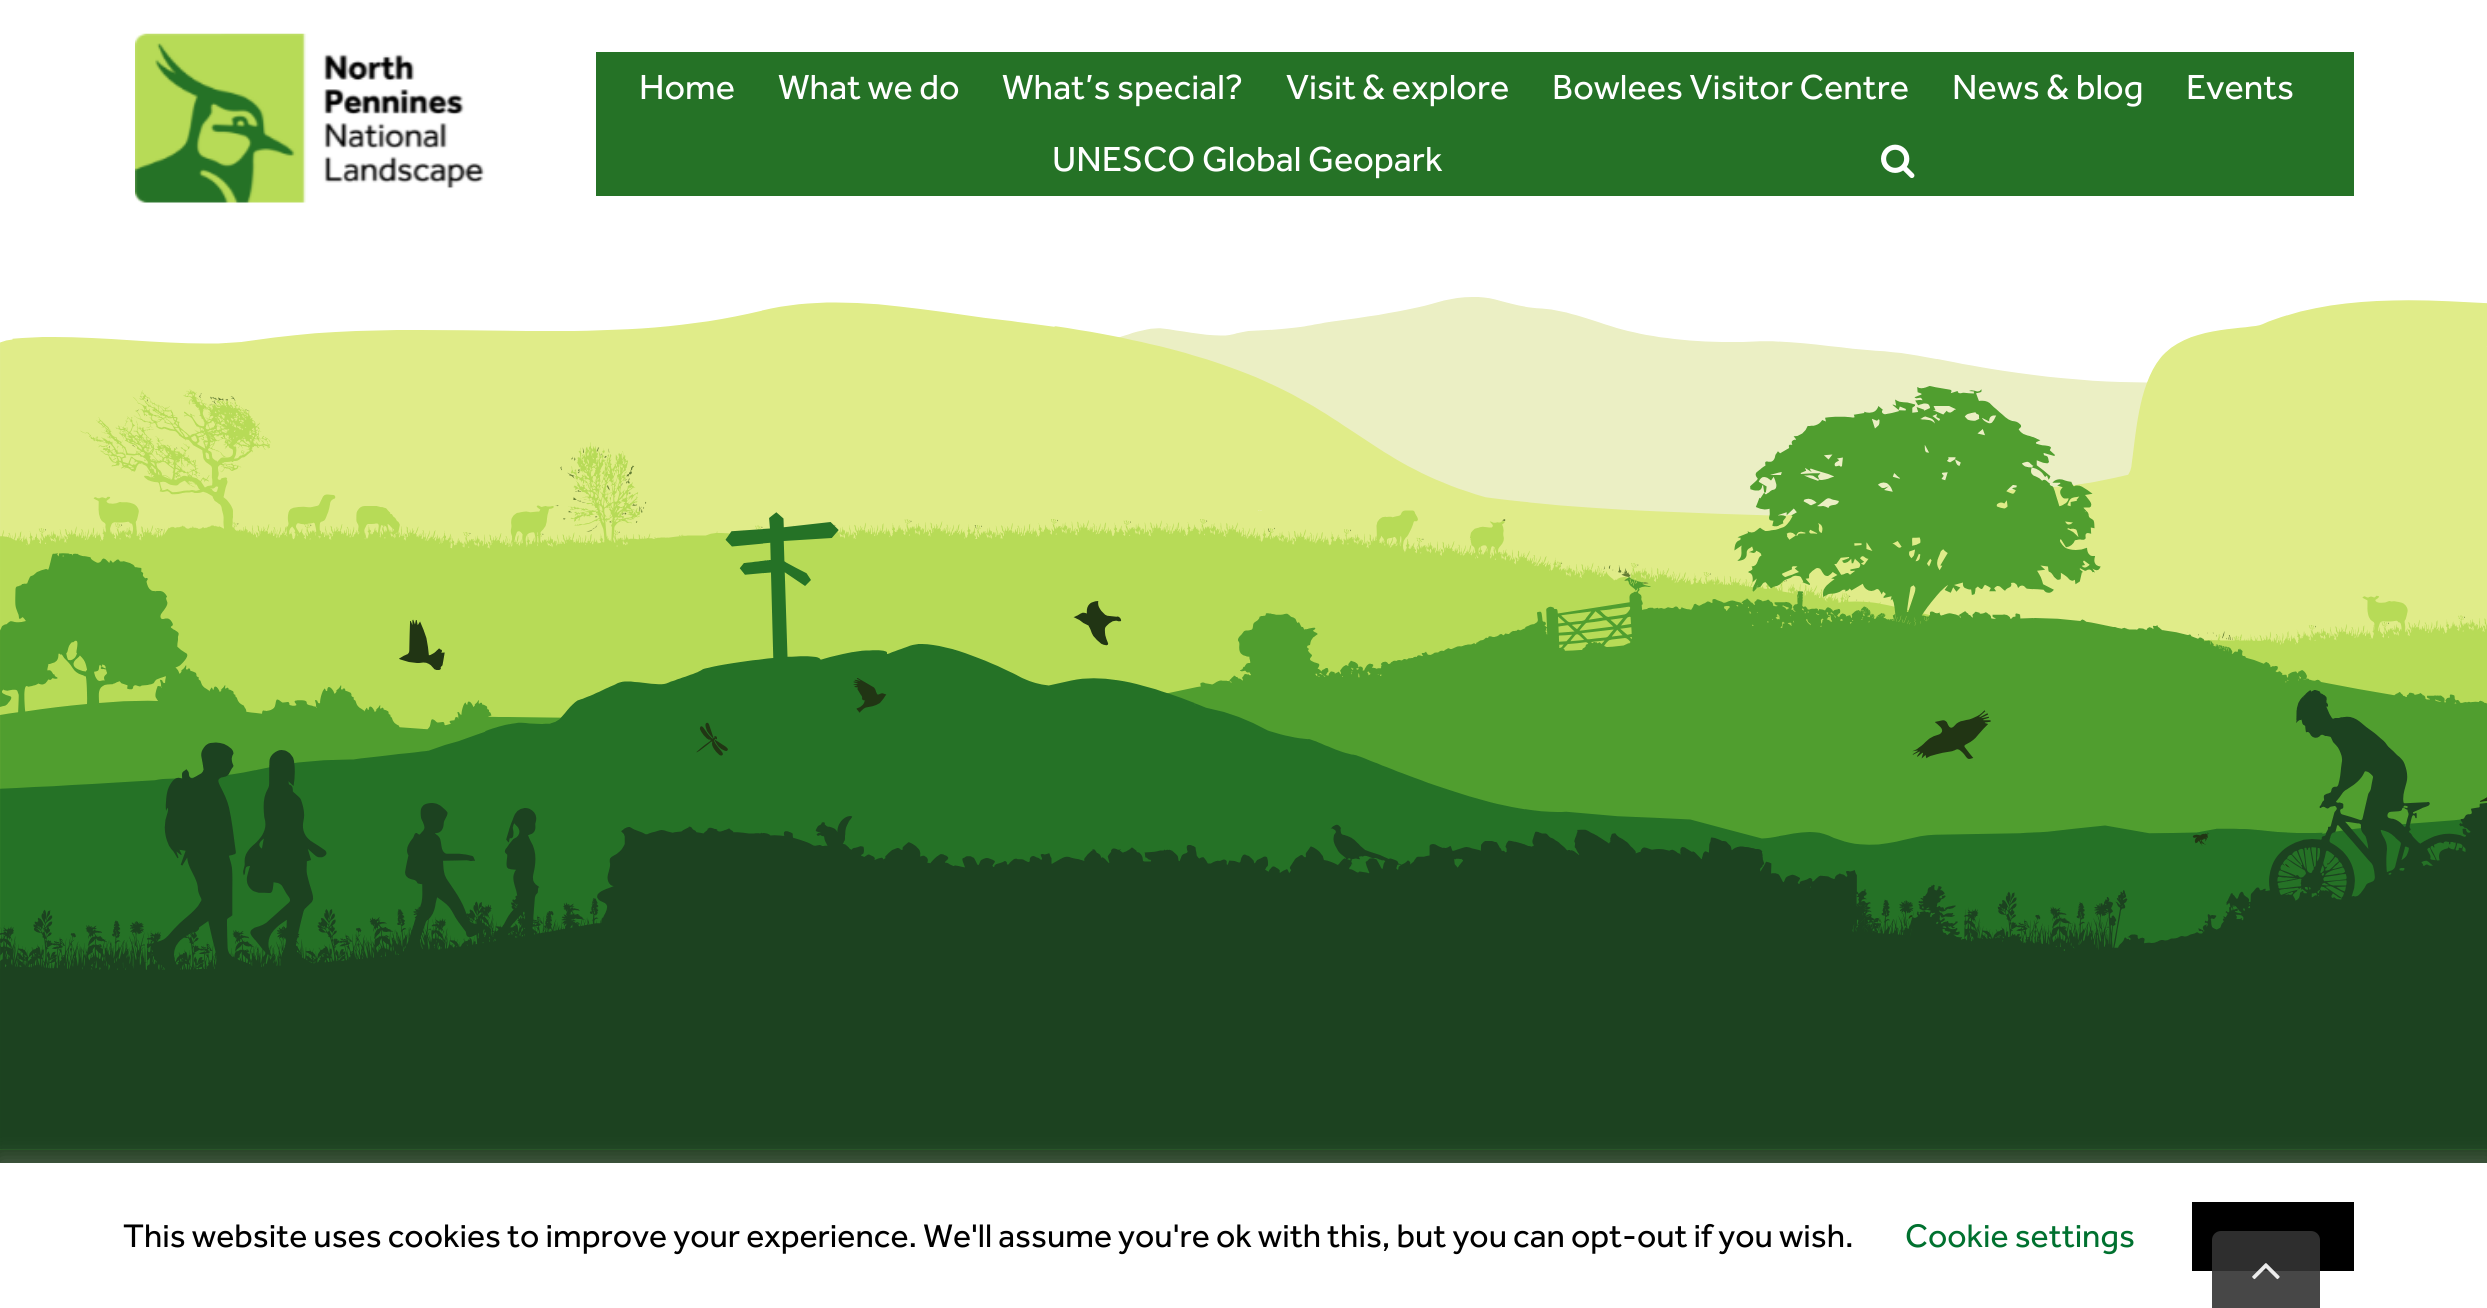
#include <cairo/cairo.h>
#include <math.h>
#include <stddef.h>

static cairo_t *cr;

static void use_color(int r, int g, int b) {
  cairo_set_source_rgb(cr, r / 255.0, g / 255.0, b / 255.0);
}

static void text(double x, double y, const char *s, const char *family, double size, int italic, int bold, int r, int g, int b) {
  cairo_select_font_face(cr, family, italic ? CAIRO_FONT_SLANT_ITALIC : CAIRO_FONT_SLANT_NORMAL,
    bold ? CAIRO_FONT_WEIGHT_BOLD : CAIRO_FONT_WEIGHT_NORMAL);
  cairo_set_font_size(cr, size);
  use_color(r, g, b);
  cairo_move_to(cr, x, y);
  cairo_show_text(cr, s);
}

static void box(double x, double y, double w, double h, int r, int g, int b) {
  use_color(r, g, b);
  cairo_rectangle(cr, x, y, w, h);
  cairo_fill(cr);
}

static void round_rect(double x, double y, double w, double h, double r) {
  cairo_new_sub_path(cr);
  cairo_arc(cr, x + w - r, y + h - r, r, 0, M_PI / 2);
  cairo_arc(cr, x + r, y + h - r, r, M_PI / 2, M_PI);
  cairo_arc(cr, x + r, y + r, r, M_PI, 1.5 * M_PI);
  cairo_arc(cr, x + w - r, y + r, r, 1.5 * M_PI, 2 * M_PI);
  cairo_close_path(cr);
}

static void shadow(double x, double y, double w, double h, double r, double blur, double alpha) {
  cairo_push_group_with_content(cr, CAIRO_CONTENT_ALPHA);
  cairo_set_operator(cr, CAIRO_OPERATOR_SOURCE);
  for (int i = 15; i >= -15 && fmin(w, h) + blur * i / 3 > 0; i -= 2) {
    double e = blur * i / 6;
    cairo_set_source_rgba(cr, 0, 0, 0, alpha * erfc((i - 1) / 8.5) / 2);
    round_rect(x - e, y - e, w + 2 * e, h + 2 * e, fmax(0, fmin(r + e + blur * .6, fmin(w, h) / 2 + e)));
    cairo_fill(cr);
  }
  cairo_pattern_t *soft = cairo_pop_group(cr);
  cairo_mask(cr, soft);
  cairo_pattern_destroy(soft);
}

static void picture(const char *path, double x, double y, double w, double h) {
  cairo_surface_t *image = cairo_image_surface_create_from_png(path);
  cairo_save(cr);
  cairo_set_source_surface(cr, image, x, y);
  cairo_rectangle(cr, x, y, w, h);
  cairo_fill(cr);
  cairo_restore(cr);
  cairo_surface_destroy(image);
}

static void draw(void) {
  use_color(255, 255, 255);
  cairo_paint(cr);
  picture("img_01.png", 135, 33, 350, 170);
  box(596, 52, 1758, 144, 37, 114, 38);
  picture("img_02.png", 1881, 144, 34, 34);
  picture("img_03.png", 0, 297, 2487, 853);
  box(0, 1150, 2487, 13, 37, 65, 36);
  use_color(172, 171, 171);
  shadow(0, 1161, 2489, 146, 0, 11, 0.3);
  box(0, 1163, 2487, 145, 255, 255, 255);
  box(2192, 1202, 162, 69, 0, 0, 0);
  cairo_set_source_rgba(cr, 0.2, 0.2, 0.2, 0.9);
  cairo_new_path(cr);
  cairo_move_to(cr, 2221, 1231);
  cairo_line_to(cr, 2311, 1231);
  cairo_curve_to(cr, 2316, 1231, 2320, 1235, 2320, 1240);
  cairo_line_to(cr, 2320, 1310);
  cairo_line_to(cr, 2212, 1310);
  cairo_line_to(cr, 2212, 1240);
  cairo_curve_to(cr, 2212, 1235, 2216, 1231, 2221, 1231);
  cairo_close_path(cr);
  cairo_fill(cr);
  picture("img_04.png", 2252, 1263, 28, 17);
  text(639, 99, "Home", "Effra", 36, 0, 0, 255, 255, 255);
  text(778, 99, "What we do", "Effra", 36, 0, 0, 255, 255, 255);
  text(1002, 99, "What’s special?", "Effra", 36, 0, 0, 255, 255, 255);
  text(1286, 99, "Visit & explore", "Effra", 36, 0, 0, 255, 255, 255);
  text(1552, 99, "Bowlees Visitor Centre", "Effra", 36, 0, 0, 255, 255, 255);
  text(1952, 99, "News & blog", "Effra", 36, 0, 0, 255, 255, 255);
  text(2186, 99, "Events", "Effra", 36, 0, 0, 255, 255, 255);
  text(1052, 171, "UNESCO Global Geopark", "Effra", 36, 0, 0, 255, 255, 255);
  text(123, 1247, "This website uses cookies to improve your experience. We'll assume you're ok with this, but you can opt-out if you wish.", "Effra", 33.75, 0, 0, 0, 0, 0);
  text(1905, 1247, "Cookie settings", "Effra", 33.75, 0, 0, 0, 113, 47);
}

int main(void) {
  cairo_surface_t *surface = cairo_image_surface_create(CAIRO_FORMAT_RGB24, 2487, 1308);
  cr = cairo_create(surface);
  cairo_font_options_t *options = cairo_font_options_create();
  cairo_font_options_set_hint_metrics(options, CAIRO_HINT_METRICS_OFF);
  cairo_font_options_set_hint_style(options, CAIRO_HINT_STYLE_NONE);
  cairo_set_font_options(cr, options);
  cairo_set_miter_limit(cr, 4);
  draw();
  cairo_surface_write_to_png(surface, "out.png");
  cairo_font_options_destroy(options);
  cairo_destroy(cr);
  cairo_surface_destroy(surface);
  return 0;
}
